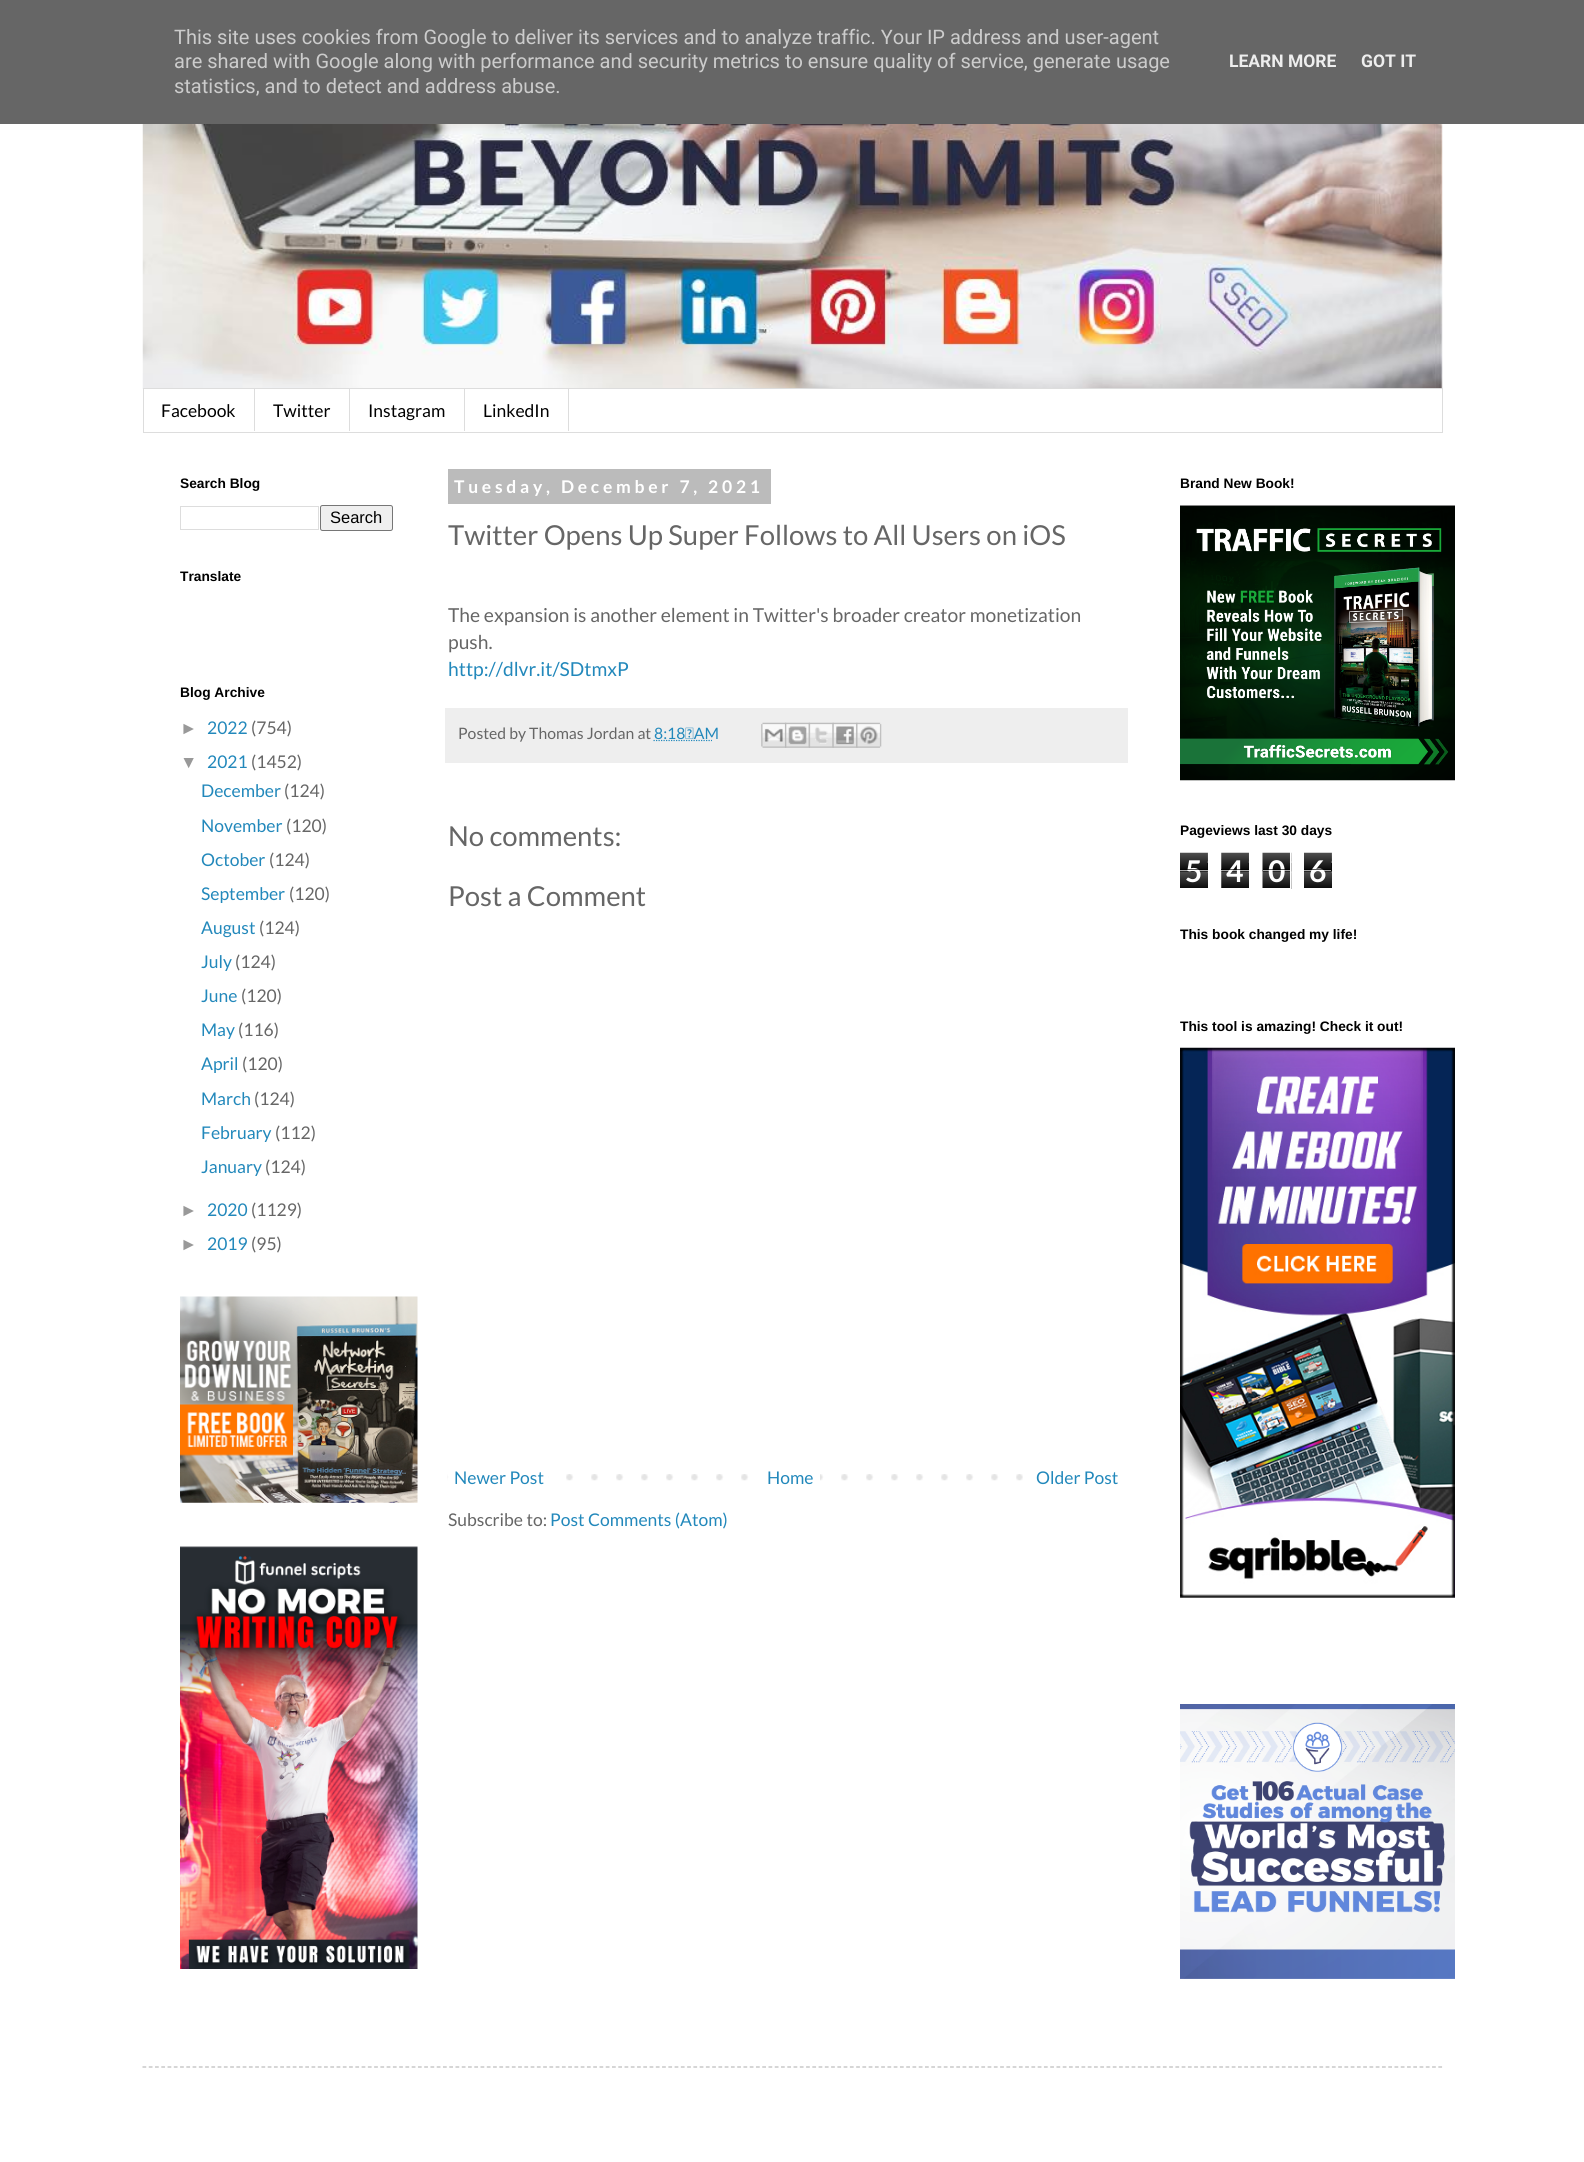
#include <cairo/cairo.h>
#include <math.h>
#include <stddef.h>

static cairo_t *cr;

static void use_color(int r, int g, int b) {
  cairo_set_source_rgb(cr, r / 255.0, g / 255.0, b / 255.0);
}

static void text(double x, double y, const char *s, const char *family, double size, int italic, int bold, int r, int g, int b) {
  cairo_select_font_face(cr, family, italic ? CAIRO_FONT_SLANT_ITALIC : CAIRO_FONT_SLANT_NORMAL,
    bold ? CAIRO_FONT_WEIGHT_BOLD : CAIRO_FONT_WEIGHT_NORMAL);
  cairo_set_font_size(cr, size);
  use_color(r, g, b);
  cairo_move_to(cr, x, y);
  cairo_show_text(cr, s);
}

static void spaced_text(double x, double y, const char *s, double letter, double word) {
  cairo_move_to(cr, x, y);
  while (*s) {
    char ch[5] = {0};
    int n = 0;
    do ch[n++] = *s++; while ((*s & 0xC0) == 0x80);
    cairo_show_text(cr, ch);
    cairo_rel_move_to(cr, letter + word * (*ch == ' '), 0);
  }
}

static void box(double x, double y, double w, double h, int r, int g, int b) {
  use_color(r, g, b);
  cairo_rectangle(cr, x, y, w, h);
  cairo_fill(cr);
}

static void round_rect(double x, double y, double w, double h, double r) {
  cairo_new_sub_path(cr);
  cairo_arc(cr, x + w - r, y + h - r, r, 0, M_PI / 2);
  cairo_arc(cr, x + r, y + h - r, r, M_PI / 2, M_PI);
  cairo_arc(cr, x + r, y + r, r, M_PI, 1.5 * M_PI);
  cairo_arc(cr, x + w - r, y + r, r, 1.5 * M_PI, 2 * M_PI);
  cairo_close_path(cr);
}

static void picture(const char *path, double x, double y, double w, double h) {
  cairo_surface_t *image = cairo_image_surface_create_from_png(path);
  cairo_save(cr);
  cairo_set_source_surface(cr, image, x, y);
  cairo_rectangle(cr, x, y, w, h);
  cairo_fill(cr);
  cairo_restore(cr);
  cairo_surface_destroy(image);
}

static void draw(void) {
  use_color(255, 255, 255);
  cairo_paint(cr);
  box(0, 0, 1584, 124, 102, 102, 102);
  picture("img_01.png", 142, 124, 1301, 265);
  cairo_rectangle(cr, 143.5, 388.5, 1299, 44);
  use_color(221, 221, 221);
  cairo_set_line_width(cr, 1);
  cairo_stroke(cr);
  box(254, 389, 1, 42, 221, 221, 221);
  box(349, 389, 1, 42, 221, 221, 221);
  box(464, 389, 1, 42, 221, 221, 221);
  box(568, 389, 1, 42, 221, 221, 221);
  cairo_rectangle(cr, 180.5, 506.5, 138, 23);
  cairo_stroke(cr);
  use_color(239, 239, 239);
  round_rect(320.5, 505.5, 72, 25, 2);
  cairo_fill_preserve(cr);
  use_color(118, 118, 118);
  cairo_stroke(cr);
  picture("img_02.png", 180, 1296, 238, 207);
  picture("img_03.png", 180, 1546, 238, 423);
  box(448, 469, 323, 35, 187, 187, 187);
  box(445, 708, 683, 55, 238, 238, 238);
  cairo_new_path(cr);
  cairo_move_to(cr, 653.5, 740.5);
  cairo_line_to(cr, 712, 740.5);
  use_color(34, 136, 187);
  cairo_set_line_width(cr, 1.2);
  cairo_set_dash(cr, (double[]){1.25, 1.25}, 2, 0);
  cairo_stroke(cr);
  picture("img_04.png", 761, 722, 26, 26);
  picture("img_05.png", 785, 722, 25, 26);
  picture("img_06.png", 808, 722, 26, 26);
  picture("img_07.png", 832, 722, 26, 26);
  picture("img_08.png", 856, 722, 26, 26);
  picture("img_09.png", 447, 1474, 576, 7);
  box(466, 1474, 82, 7, 255, 255, 255);
  box(766, 1474, 54, 7, 255, 255, 255);
  picture("img_10.png", 1180, 505, 275, 276);
  picture("img_11.png", 1180, 852, 28, 36);
  picture("img_12.png", 1221, 852, 28, 36);
  picture("img_13.png", 1262, 852, 30, 37);
  cairo_rectangle(cr, 1261.5, 851.5, 29, 37);
  cairo_set_line_width(cr, 1);
  cairo_set_dash(cr, NULL, 0, 0);
  cairo_stroke(cr);
  picture("img_14.png", 1304, 852, 28, 36);
  picture("img_15.png", 1180, 1047, 275, 551);
  picture("img_16.png", 1180, 1704, 275, 275);
  cairo_new_path(cr);
  cairo_move_to(cr, 142.5, 2067);
  cairo_line_to(cr, 1442.5, 2067);
  use_color(187, 187, 187);
  cairo_set_line_width(cr, 1.2);
  cairo_set_dash(cr, (double[]){3.75, 2.51}, 2, 0);
  cairo_stroke(cr);
  text(174, 44, "This site uses cookies from Google to deliver its services and to analyze traffic. Your IP address and user-agent", "Roboto", 20, 0, 0, 204, 204, 204);
  text(174, 68, "are shared with Google along with performance and security metrics to ensure quality of service, generate usage", "Roboto", 20, 0, 0, 204, 204, 204);
  text(174, 93, "statistics, and to detect and address abuse.", "Roboto", 20, 0, 0, 204, 204, 204);
  text(1229, 67, "LEARN MORE", "Roboto", 17.5, 0, 1, 238, 238, 238);
  text(1361, 67, "GOT IT", "Roboto", 17.5, 0, 1, 238, 238, 238);
  text(161, 417, "Facebook", "Lato", 17.5, 0, 0, 0, 0, 0);
  text(273, 417, "Twitter", "Lato", 17.5, 0, 0, 0, 0, 0);
  text(368, 417, "Instagram", "Lato", 17.5, 0, 0, 0, 0, 0);
  text(483, 417, "LinkedIn", "Lato", 17.5, 0, 0, 0, 0, 0);
  text(180, 488, "Search Blog", "Liberation Sans", 13.75, 0, 1, 0, 0, 0);
  text(330, 523, "Search", "Liberation Sans", 16.5, 0, 0, 0, 0, 0);
  text(180, 581, "Translate", "Liberation Sans", 13.75, 0, 1, 0, 0, 0);
  text(180, 697, "Blog Archive", "Liberation Sans", 13.75, 0, 1, 0, 0, 0);
  text(180, 734, "►", "Liberation Sans", 17.5, 0, 0, 153, 153, 153);
  text(207, 734, "2022", "Lato", 17.5, 0, 0, 34, 136, 187);
  text(251, 734, "(754)", "Lato", 17.5, 0, 0, 102, 102, 102);
  text(180, 768, "▼", "Liberation Sans", 17.5, 0, 0, 153, 153, 153);
  text(207, 768, "2021", "Lato", 17.5, 0, 0, 34, 136, 187);
  text(251, 768, "(1452)", "Lato", 17.5, 0, 0, 102, 102, 102);
  text(201, 797, "December", "Lato", 17.5, 0, 0, 34, 136, 187);
  text(284, 797, "(124)", "Lato", 17.5, 0, 0, 102, 102, 102);
  text(201, 832, "November", "Lato", 17.5, 0, 0, 34, 136, 187);
  text(286, 832, "(120)", "Lato", 17.5, 0, 0, 102, 102, 102);
  text(201, 866, "October", "Lato", 17.5, 0, 0, 34, 136, 187);
  text(269, 866, "(124)", "Lato", 17.5, 0, 0, 102, 102, 102);
  text(201, 900, "September", "Lato", 17.5, 0, 0, 34, 136, 187);
  text(289, 900, "(120)", "Lato", 17.5, 0, 0, 102, 102, 102);
  text(201, 934, "August", "Lato", 17.5, 0, 0, 34, 136, 187);
  text(259, 934, "(124)", "Lato", 17.5, 0, 0, 102, 102, 102);
  text(201, 968, "July", "Lato", 17.5, 0, 0, 34, 136, 187);
  text(235, 968, "(124)", "Lato", 17.5, 0, 0, 102, 102, 102);
  text(201, 1002, "June", "Lato", 17.5, 0, 0, 34, 136, 187);
  text(241, 1002, "(120)", "Lato", 17.5, 0, 0, 102, 102, 102);
  text(201, 1036, "May", "Lato", 17.5, 0, 0, 34, 136, 187);
  text(238, 1036, "(116)", "Lato", 17.5, 0, 0, 102, 102, 102);
  text(201, 1070, "April", "Lato", 17.5, 0, 0, 34, 136, 187);
  text(242, 1070, "(120)", "Lato", 17.5, 0, 0, 102, 102, 102);
  text(201, 1105, "March", "Lato", 17.5, 0, 0, 34, 136, 187);
  text(254, 1105, "(124)", "Lato", 17.5, 0, 0, 102, 102, 102);
  text(201, 1139, "February", "Lato", 17.5, 0, 0, 34, 136, 187);
  text(275, 1139, "(112)", "Lato", 17.5, 0, 0, 102, 102, 102);
  text(201, 1173, "January", "Lato", 17.5, 0, 0, 34, 136, 187);
  text(265, 1173, "(124)", "Lato", 17.5, 0, 0, 102, 102, 102);
  text(180, 1216, "►", "Liberation Sans", 17.5, 0, 0, 153, 153, 153);
  text(207, 1216, "2020", "Lato", 17.5, 0, 0, 34, 136, 187);
  text(251, 1216, "(1129)", "Lato", 17.5, 0, 0, 102, 102, 102);
  text(180, 1250, "►", "Liberation Sans", 17.5, 0, 0, 153, 153, 153);
  text(207, 1250, "2019", "Lato", 17.5, 0, 0, 34, 136, 187);
  text(251, 1250, "(95)", "Lato", 17.5, 0, 0, 102, 102, 102);
  cairo_select_font_face(cr, "Lato", CAIRO_FONT_SLANT_NORMAL, CAIRO_FONT_WEIGHT_BOLD);
  use_color(255, 255, 255);
  spaced_text(454, 493, "Tuesday, December 7, 2021", 3.75, 0);
  text(448, 545, "Twitter Opens Up Super Follows to All Users on iOS", "Lato", 27.5, 0, 0, 102, 102, 102);
  text(448, 622, "The expansion is another element in Twitter's broader creator monetization", "Lato", 19.25, 0, 0, 102, 102, 102);
  text(448, 649, "push.", "Lato", 19.25, 0, 0, 102, 102, 102);
  text(448, 676, "http://dlvr.it/SDtmxP", "Lato", 19.25, 0, 0, 34, 136, 187);
  text(458, 739, "Posted by Thomas Jordan at", "Lato", 15.75, 0, 0, 102, 102, 102);
  text(654, 739, "8:18 AM", "Lato", 15.75, 0, 0, 34, 136, 187);
  text(448, 846, "No comments:", "Lato", 27.5, 0, 0, 102, 102, 102);
  text(448, 906, "Post a Comment", "Lato", 27.5, 0, 0, 102, 102, 102);
  text(454, 1484, "Newer Post", "Lato", 17.5, 0, 0, 34, 136, 187);
  text(767, 1484, "Home", "Lato", 17.5, 0, 0, 34, 136, 187);
  text(1036, 1484, "Older Post", "Lato", 17.5, 0, 0, 34, 136, 187);
  text(448, 1526, "Subscribe to:", "Lato", 17.5, 0, 0, 102, 102, 102);
  text(550, 1526, "Post Comments (Atom)", "Lato", 17.5, 0, 0, 34, 136, 187);
  text(1180, 488, "Brand New Book!", "Liberation Sans", 13.75, 0, 1, 0, 0, 0);
  text(1180, 835, "Pageviews last 30 days", "Liberation Sans", 13.75, 0, 1, 0, 0, 0);
  text(1185, 882, "5", "Lato", 30, 0, 1, 255, 255, 255);
  cairo_set_source_rgba(cr, 0, 0, 0, 0.65);
  cairo_rectangle(cr, 1180, 869, 28, 1);
  cairo_fill(cr);
  cairo_set_source_rgba(cr, 1, 1, 1, 0.65);
  cairo_rectangle(cr, 1180, 870, 28, 1);
  cairo_fill(cr);
  text(1226, 882, "4", "Lato", 30, 0, 1, 255, 255, 255);
  cairo_set_source_rgba(cr, 0, 0, 0, 0.65);
  cairo_rectangle(cr, 1221, 869, 28, 1);
  cairo_fill(cr);
  cairo_set_source_rgba(cr, 1, 1, 1, 0.65);
  cairo_rectangle(cr, 1221, 870, 28, 1);
  cairo_fill(cr);
  text(1268, 882, "0", "Lato", 30, 0, 1, 255, 255, 255);
  cairo_set_source_rgba(cr, 0, 0, 0, 0.65);
  cairo_rectangle(cr, 1263, 869, 27, 1);
  cairo_fill(cr);
  cairo_set_source_rgba(cr, 1, 1, 1, 0.65);
  cairo_rectangle(cr, 1263, 870, 27, 1);
  cairo_fill(cr);
  text(1309, 882, "6", "Lato", 30, 0, 1, 255, 255, 255);
  cairo_set_source_rgba(cr, 0, 0, 0, 0.65);
  cairo_rectangle(cr, 1304, 869, 27, 1);
  cairo_fill(cr);
  cairo_set_source_rgba(cr, 1, 1, 1, 0.65);
  cairo_rectangle(cr, 1304, 870, 27, 1);
  cairo_fill(cr);
  text(1180, 939, "This book changed my life!", "Liberation Sans", 13.75, 0, 1, 0, 0, 0);
  text(1180, 1031, "This tool is amazing! Check it out!", "Liberation Sans", 13.75, 0, 1, 0, 0, 0);
}

int main(void) {
  cairo_surface_t *surface = cairo_image_surface_create(CAIRO_FORMAT_RGB24, 1584, 2162);
  cr = cairo_create(surface);
  cairo_font_options_t *options = cairo_font_options_create();
  cairo_font_options_set_hint_metrics(options, CAIRO_HINT_METRICS_OFF);
  cairo_font_options_set_hint_style(options, CAIRO_HINT_STYLE_NONE);
  cairo_set_font_options(cr, options);
  cairo_set_miter_limit(cr, 4);
  draw();
  cairo_surface_write_to_png(surface, "out.png");
  cairo_font_options_destroy(options);
  cairo_destroy(cr);
  cairo_surface_destroy(surface);
  return 0;
}
